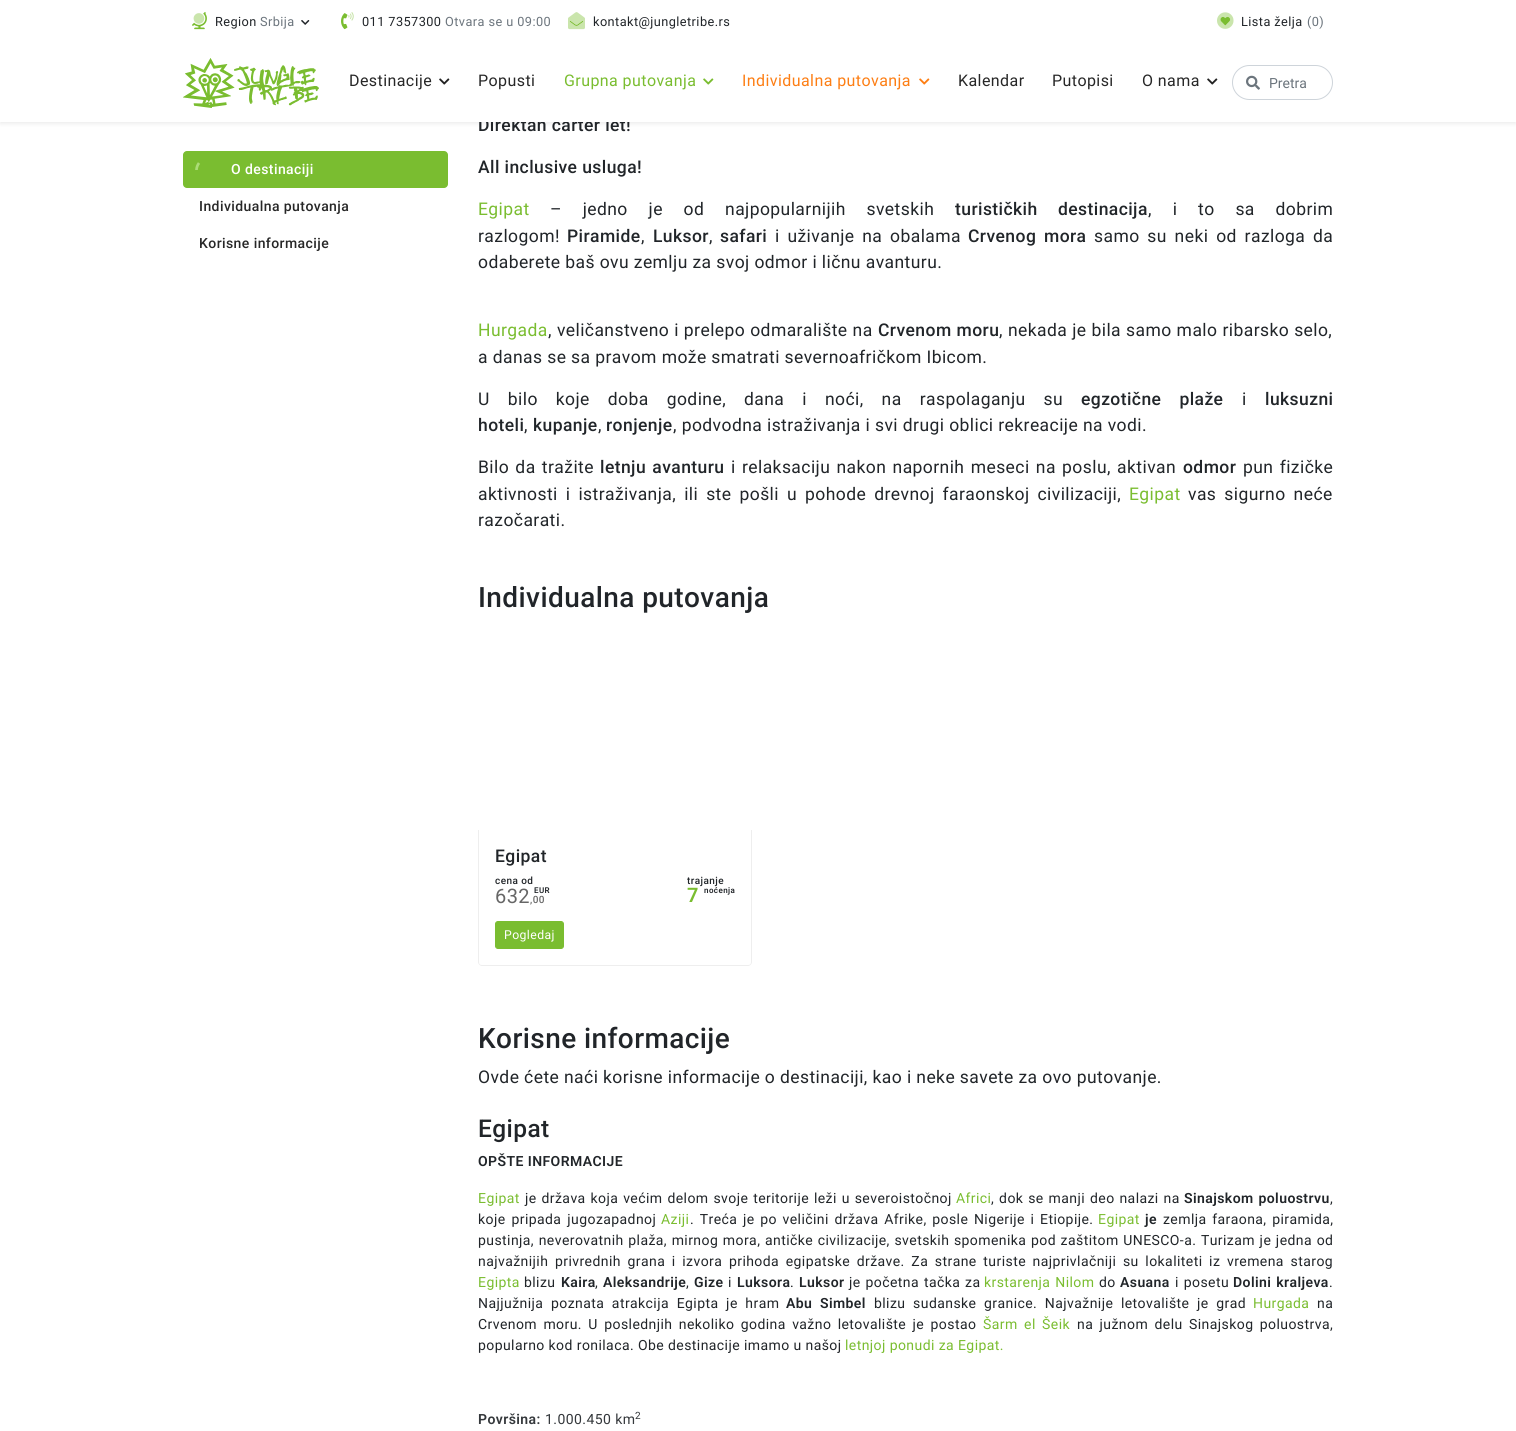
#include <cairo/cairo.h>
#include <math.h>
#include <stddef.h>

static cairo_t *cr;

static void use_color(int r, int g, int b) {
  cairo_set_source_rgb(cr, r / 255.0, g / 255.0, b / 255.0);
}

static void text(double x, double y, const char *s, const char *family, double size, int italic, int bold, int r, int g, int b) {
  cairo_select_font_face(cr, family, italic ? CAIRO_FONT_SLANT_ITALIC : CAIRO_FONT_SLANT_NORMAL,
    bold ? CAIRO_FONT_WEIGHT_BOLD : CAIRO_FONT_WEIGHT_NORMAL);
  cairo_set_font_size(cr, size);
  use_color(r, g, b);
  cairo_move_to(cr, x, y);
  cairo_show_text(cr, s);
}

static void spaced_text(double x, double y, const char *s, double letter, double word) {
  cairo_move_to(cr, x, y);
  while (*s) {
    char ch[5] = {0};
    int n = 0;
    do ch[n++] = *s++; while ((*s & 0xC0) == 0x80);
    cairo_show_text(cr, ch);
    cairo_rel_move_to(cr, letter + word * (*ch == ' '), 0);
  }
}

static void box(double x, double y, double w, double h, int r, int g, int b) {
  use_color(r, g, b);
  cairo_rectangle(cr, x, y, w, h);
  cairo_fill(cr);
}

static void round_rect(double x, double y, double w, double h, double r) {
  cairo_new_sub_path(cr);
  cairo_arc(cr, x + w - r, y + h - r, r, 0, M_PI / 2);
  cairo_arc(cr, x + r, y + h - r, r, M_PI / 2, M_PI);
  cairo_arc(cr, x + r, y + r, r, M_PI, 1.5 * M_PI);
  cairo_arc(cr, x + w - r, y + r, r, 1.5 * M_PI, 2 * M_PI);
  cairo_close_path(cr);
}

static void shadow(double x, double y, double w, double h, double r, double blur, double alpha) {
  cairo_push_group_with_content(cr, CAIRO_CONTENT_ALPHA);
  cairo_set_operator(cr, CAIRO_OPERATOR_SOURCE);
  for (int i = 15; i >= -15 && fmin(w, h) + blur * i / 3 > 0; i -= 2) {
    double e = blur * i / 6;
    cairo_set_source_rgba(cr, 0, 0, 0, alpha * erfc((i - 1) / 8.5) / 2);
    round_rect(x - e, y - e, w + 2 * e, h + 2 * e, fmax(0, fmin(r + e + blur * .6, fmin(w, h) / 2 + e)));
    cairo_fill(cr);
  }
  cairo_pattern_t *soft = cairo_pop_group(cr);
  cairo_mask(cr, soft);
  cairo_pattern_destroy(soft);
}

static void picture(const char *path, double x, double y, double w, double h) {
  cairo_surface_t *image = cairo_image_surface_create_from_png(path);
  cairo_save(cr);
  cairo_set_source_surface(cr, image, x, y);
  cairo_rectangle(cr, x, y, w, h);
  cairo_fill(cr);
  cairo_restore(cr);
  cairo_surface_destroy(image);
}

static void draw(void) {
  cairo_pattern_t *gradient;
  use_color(255, 255, 255);
  cairo_paint(cr);
  use_color(0, 0, 0);
  shadow(0, 2, 1516, 122, 0, 2, 0.07);
  use_color(122, 189, 48);
  round_rect(183, 151, 265, 37, 4);
  cairo_fill(cr);
  cairo_new_path(cr);
  cairo_move_to(cr, 196.5, 170);
  cairo_curve_to(cr, 196.5, 167.5, 197.5, 165, 199, 163);
  use_color(172, 220, 119);
  cairo_set_line_width(cr, 2.7);
  cairo_stroke(cr);
  use_color(238, 238, 238);
  cairo_set_fill_rule(cr, CAIRO_FILL_RULE_EVEN_ODD);
  cairo_new_path(cr);
  cairo_move_to(cr, 478, 830);
  cairo_line_to(cr, 752, 830);
  cairo_line_to(cr, 752, 962);
  cairo_curve_to(cr, 752, 964, 750, 966, 748, 966);
  cairo_line_to(cr, 482, 966);
  cairo_curve_to(cr, 480, 966, 478, 964, 478, 962);
  cairo_close_path(cr);
  cairo_move_to(cr, 479, 830);
  cairo_line_to(cr, 751, 830);
  cairo_line_to(cr, 751, 962);
  cairo_curve_to(cr, 751, 964, 750, 965, 748, 965);
  cairo_line_to(cr, 482, 965);
  cairo_curve_to(cr, 480, 965, 479, 964, 479, 962);
  cairo_close_path(cr);
  cairo_fill(cr);
  use_color(122, 189, 48);
  round_rect(495.5, 921.5, 68, 27, 2.5);
  cairo_fill_preserve(cr);
  cairo_set_line_width(cr, 1);
  cairo_stroke(cr);
  cairo_select_font_face(cr, "Roboto Medium", CAIRO_FONT_SLANT_NORMAL, CAIRO_FONT_WEIGHT_NORMAL);
  cairo_set_font_size(cr, 14);
  use_color(255, 255, 255);
  spaced_text(231, 174, "O destinaciji", 0.42, 0);
  use_color(39, 39, 39);
  spaced_text(199, 211, "Individualna putovanja", 0.42, 0);
  spaced_text(199, 248, "Korisne informacije", 0.42, 0);
  cairo_set_font_size(cr, 17.5);
  use_color(33, 37, 41);
  spaced_text(478, 131, "Direktan čarter let!", 0.42, 0);
  box(0, 0, 1516, 122, 255, 255, 255);
  round_rect(1232.5, 65.5, 100, 34, 17);
  use_color(206, 212, 218);
  cairo_stroke(cr);
  picture("img_14.png", 1246, 75, 14, 15);
  text(1269, 88, "Pretra", "Roboto", 14, 0, 0, 108, 117, 125);
  picture("img_11.png", 1207, 78, 11, 7);
  cairo_set_font_size(cr, 16);
  use_color(39, 39, 39);
  spaced_text(1142, 86, "O nama", 0.42, 0);
  spaced_text(1052, 86, "Putopisi", 0.42, 0);
  spaced_text(958, 86, "Kalendar", 0.42, 0);
  picture("img_13.png", 919, 78, 11, 7);
  use_color(253, 126, 20);
  spaced_text(742, 86, "Individualna putovanja", 0.42, 0);
  picture("img_12.png", 703, 78, 11, 7);
  use_color(122, 189, 48);
  spaced_text(564, 86, "Grupna putovanja", 0.42, 0);
  use_color(39, 39, 39);
  spaced_text(478, 86, "Popusti", 0.42, 0);
  picture("img_11.png", 439, 78, 11, 7);
  spaced_text(349, 86, "Destinacije", 0.42, 0);
  picture("img_10.png", 183, 58, 136, 50);
  picture("img_09.png", 1220, 16, 11, 10);
  picture("img_08.png", 1217, 12, 17, 17);
  picture("img_07.png", 569, 20, 15, 6);
  picture("img_06.png", 568, 12, 17, 18);
  picture("img_05.png", 348, 12, 6, 9);
  picture("img_04.png", 341, 13, 7, 17);
  cairo_set_font_size(cr, 12.75);
  use_color(33, 37, 41);
  spaced_text(593, 26, "kontakt@jungletribe.rs", 0.42, 0);
  use_color(108, 117, 125);
  spaced_text(445, 26, "Otvara se u 09:00", 0.42, 0);
  use_color(33, 37, 41);
  spaced_text(362, 26, "011 7357300", 0.42, 0);
  picture("img_01.png", 192, 12, 15, 18);
  picture("img_02.png", 193, 13, 12, 11);
  picture("img_03.png", 301, 20, 9, 5);
  use_color(108, 117, 125);
  spaced_text(260, 26, "Srbija", 0.42, 0);
  use_color(33, 37, 41);
  spaced_text(215, 26, "Region", 0.42, 0);
  use_color(108, 117, 125);
  spaced_text(1307, 26, "(0)", 0.42, 0);
  use_color(33, 37, 41);
  spaced_text(1241, 26, "Lista želja", 0.42, 0);
  cairo_select_font_face(cr, "Roboto Medium", CAIRO_FONT_SLANT_NORMAL, CAIRO_FONT_WEIGHT_NORMAL);
  cairo_set_font_size(cr, 17.5);
  spaced_text(478, 173, "All inclusive usluga!", 0.42, 0);
  cairo_select_font_face(cr, "Roboto", CAIRO_FONT_SLANT_NORMAL, CAIRO_FONT_WEIGHT_NORMAL);
  use_color(122, 189, 48);
  spaced_text(478, 215, "Egipat", 0.42, 0);
  use_color(33, 37, 41);
  spaced_text(550, 215, "– jedno je od najpopularnijih svetskih", 0.42, 16);
  cairo_select_font_face(cr, "Roboto Medium", CAIRO_FONT_SLANT_NORMAL, CAIRO_FONT_WEIGHT_NORMAL);
  spaced_text(955, 215, "turističkih", 0.42, 0);
  spaced_text(1058, 215, "destinacija", 0.42, 0);
  cairo_select_font_face(cr, "Roboto", CAIRO_FONT_SLANT_NORMAL, CAIRO_FONT_WEIGHT_NORMAL);
  spaced_text(1148, 215, ", i to sa dobrim", 0.42, 16);
  spaced_text(478, 242, "razlogom!", 0.42, 0);
  cairo_select_font_face(cr, "Roboto Medium", CAIRO_FONT_SLANT_NORMAL, CAIRO_FONT_WEIGHT_NORMAL);
  spaced_text(567, 242, "Piramide", 0.42, 0);
  cairo_select_font_face(cr, "Roboto", CAIRO_FONT_SLANT_NORMAL, CAIRO_FONT_WEIGHT_NORMAL);
  spaced_text(641, 242, ",", 0.42, 0);
  cairo_select_font_face(cr, "Roboto Medium", CAIRO_FONT_SLANT_NORMAL, CAIRO_FONT_WEIGHT_NORMAL);
  spaced_text(653, 242, "Luksor", 0.42, 0);
  cairo_select_font_face(cr, "Roboto", CAIRO_FONT_SLANT_NORMAL, CAIRO_FONT_WEIGHT_NORMAL);
  spaced_text(709, 242, ",", 0.42, 0);
  cairo_select_font_face(cr, "Roboto Medium", CAIRO_FONT_SLANT_NORMAL, CAIRO_FONT_WEIGHT_NORMAL);
  spaced_text(720, 242, "safari", 0.42, 0);
  cairo_select_font_face(cr, "Roboto", CAIRO_FONT_SLANT_NORMAL, CAIRO_FONT_WEIGHT_NORMAL);
  spaced_text(775, 242, "i uživanje na obalama", 0.42, 3);
  cairo_select_font_face(cr, "Roboto Medium", CAIRO_FONT_SLANT_NORMAL, CAIRO_FONT_WEIGHT_NORMAL);
  spaced_text(968, 242, "Crvenog mora", 0.42, 3);
  cairo_select_font_face(cr, "Roboto", CAIRO_FONT_SLANT_NORMAL, CAIRO_FONT_WEIGHT_NORMAL);
  spaced_text(1094, 242, "samo su neki od razloga da", 0.42, 3);
  spaced_text(478, 268, "odaberete baš ovu zemlju za svoj odmor i ličnu avanturu.", 0.42, 0);
  use_color(122, 189, 48);
  spaced_text(478, 336, "Hurgada", 0.42, 0);
  use_color(33, 37, 41);
  spaced_text(548, 336, ", veličanstveno i prelepo odmaralište na", 0.42, 0.25);
  cairo_select_font_face(cr, "Roboto Medium", CAIRO_FONT_SLANT_NORMAL, CAIRO_FONT_WEIGHT_NORMAL);
  spaced_text(878, 336, "Crvenom moru", 0.42, 0.25);
  cairo_select_font_face(cr, "Roboto", CAIRO_FONT_SLANT_NORMAL, CAIRO_FONT_WEIGHT_NORMAL);
  spaced_text(999, 336, ", nekada je bila samo malo ribarsko selo,", 0.42, 0.25);
  spaced_text(478, 363, "a danas se sa pravom može smatrati severnoafričkom Ibicom.", 0.42, 0);
  spaced_text(478, 405, "U bilo koje doba godine, dana i noći, na raspolaganju su", 0.42, 13.25);
  cairo_select_font_face(cr, "Roboto Medium", CAIRO_FONT_SLANT_NORMAL, CAIRO_FONT_WEIGHT_NORMAL);
  spaced_text(1081, 405, "egzotične plaže", 0.42, 13.25);
  cairo_select_font_face(cr, "Roboto", CAIRO_FONT_SLANT_NORMAL, CAIRO_FONT_WEIGHT_NORMAL);
  spaced_text(1242, 405, "i", 0.42, 0);
  cairo_select_font_face(cr, "Roboto Medium", CAIRO_FONT_SLANT_NORMAL, CAIRO_FONT_WEIGHT_NORMAL);
  spaced_text(1265, 405, "luksuzni", 0.42, 0);
  spaced_text(478, 431, "hoteli", 0.42, 0);
  cairo_select_font_face(cr, "Roboto", CAIRO_FONT_SLANT_NORMAL, CAIRO_FONT_WEIGHT_NORMAL);
  spaced_text(524, 431, ",", 0.42, 0);
  cairo_select_font_face(cr, "Roboto Medium", CAIRO_FONT_SLANT_NORMAL, CAIRO_FONT_WEIGHT_NORMAL);
  spaced_text(533, 431, "kupanje", 0.42, 0);
  cairo_select_font_face(cr, "Roboto", CAIRO_FONT_SLANT_NORMAL, CAIRO_FONT_WEIGHT_NORMAL);
  spaced_text(598, 431, ",", 0.42, 0);
  cairo_select_font_face(cr, "Roboto Medium", CAIRO_FONT_SLANT_NORMAL, CAIRO_FONT_WEIGHT_NORMAL);
  spaced_text(606, 431, "ronjenje", 0.42, 0);
  cairo_select_font_face(cr, "Roboto", CAIRO_FONT_SLANT_NORMAL, CAIRO_FONT_WEIGHT_NORMAL);
  spaced_text(673, 431, ", podvodna istraživanja i svi drugi oblici rekreacije na vodi.", 0.42, 0);
  spaced_text(478, 473, "Bilo da tražite", 0.42, 1.5);
  cairo_select_font_face(cr, "Roboto Medium", CAIRO_FONT_SLANT_NORMAL, CAIRO_FONT_WEIGHT_NORMAL);
  spaced_text(600, 473, "letnju avanturu", 0.42, 1.5);
  cairo_select_font_face(cr, "Roboto", CAIRO_FONT_SLANT_NORMAL, CAIRO_FONT_WEIGHT_NORMAL);
  spaced_text(731, 473, "i relaksaciju nakon napornih meseci na poslu, aktivan", 0.42, 1.5);
  cairo_select_font_face(cr, "Roboto Medium", CAIRO_FONT_SLANT_NORMAL, CAIRO_FONT_WEIGHT_NORMAL);
  spaced_text(1183, 473, "odmor", 0.42, 0);
  cairo_select_font_face(cr, "Roboto", CAIRO_FONT_SLANT_NORMAL, CAIRO_FONT_WEIGHT_NORMAL);
  spaced_text(1243, 473, "pun fizičke", 0.42, 1.5);
  spaced_text(478, 500, "aktivnosti i istraživanja, ili ste pošli u pohode drevnoj faraonskoj civilizaciji,", 0.42, 3.25);
  use_color(122, 189, 48);
  spaced_text(1129, 500, "Egipat", 0.42, 0);
  use_color(33, 37, 41);
  spaced_text(1188, 500, "vas sigurno neće", 0.42, 3.25);
  spaced_text(478, 526, "razočarati.", 0.42, 0);
  cairo_select_font_face(cr, "Roboto Medium", CAIRO_FONT_SLANT_NORMAL, CAIRO_FONT_WEIGHT_NORMAL);
  cairo_set_font_size(cr, 28);
  spaced_text(478, 607, "Individualna putovanja", 0.42, 0);
  cairo_set_font_size(cr, 17.5);
  spaced_text(495, 862, "Egipat", 0.42, 0);
  cairo_set_font_size(cr, 10);
  spaced_text(495, 884, "cena od", 0.42, 0);
  cairo_select_font_face(cr, "Roboto", CAIRO_FONT_SLANT_NORMAL, CAIRO_FONT_WEIGHT_NORMAL);
  cairo_set_font_size(cr, 20);
  use_color(102, 102, 102);
  spaced_text(495, 903, "632", 0.42, 0);
  cairo_select_font_face(cr, "Roboto SemiBold", CAIRO_FONT_SLANT_NORMAL, CAIRO_FONT_WEIGHT_NORMAL);
  cairo_set_font_size(cr, 8);
  use_color(33, 37, 41);
  spaced_text(534, 893, "EUR", 0.42, 0);
  cairo_select_font_face(cr, "Roboto Medium", CAIRO_FONT_SLANT_NORMAL, CAIRO_FONT_WEIGHT_NORMAL);
  cairo_set_font_size(cr, 10);
  use_color(102, 102, 102);
  spaced_text(530, 903, ",00", 0.42, 0);
  use_color(33, 37, 41);
  spaced_text(687, 884, "trajanje", 0.42, 0);
  cairo_select_font_face(cr, "Roboto SemiBold", CAIRO_FONT_SLANT_NORMAL, CAIRO_FONT_WEIGHT_NORMAL);
  cairo_set_font_size(cr, 20);
  use_color(122, 189, 48);
  spaced_text(687, 902, "7", 0.42, 0);
  cairo_set_font_size(cr, 8);
  use_color(33, 37, 41);
  spaced_text(704, 893, "noćenja", 0.42, 0);
  cairo_select_font_face(cr, "Roboto", CAIRO_FONT_SLANT_NORMAL, CAIRO_FONT_WEIGHT_NORMAL);
  cairo_set_font_size(cr, 12.25);
  use_color(255, 255, 255);
  spaced_text(504, 939, "Pogledaj", 0.42, 0);
  cairo_select_font_face(cr, "Roboto Medium", CAIRO_FONT_SLANT_NORMAL, CAIRO_FONT_WEIGHT_NORMAL);
  cairo_set_font_size(cr, 28);
  use_color(33, 37, 41);
  spaced_text(478, 1048, "Korisne informacije", 0.42, 0);
  cairo_select_font_face(cr, "Roboto", CAIRO_FONT_SLANT_NORMAL, CAIRO_FONT_WEIGHT_NORMAL);
  cairo_set_font_size(cr, 17.5);
  spaced_text(478, 1083, "Ovde ćete naći korisne informacije o destinaciji, kao i neke savete za ovo putovanje.", 0.42, 0);
  cairo_select_font_face(cr, "Roboto Medium", CAIRO_FONT_SLANT_NORMAL, CAIRO_FONT_WEIGHT_NORMAL);
  cairo_set_font_size(cr, 24.5);
  spaced_text(478, 1137, "Egipat", 0.42, 0);
  cairo_select_font_face(cr, "Roboto SemiBold", CAIRO_FONT_SLANT_NORMAL, CAIRO_FONT_WEIGHT_NORMAL);
  cairo_set_font_size(cr, 14);
  spaced_text(478, 1166, "OPŠTE INFORMACIJE", 0.42, 0);
  cairo_select_font_face(cr, "Roboto", CAIRO_FONT_SLANT_NORMAL, CAIRO_FONT_WEIGHT_NORMAL);
  use_color(122, 189, 48);
  spaced_text(478, 1203, "Egipat", 0.42, 0);
  use_color(33, 37, 41);
  spaced_text(525, 1203, "je država koja većim delom svoje teritorije leži u severoistočnoj", 0.42, 1);
  use_color(122, 189, 48);
  spaced_text(956, 1203, "Africi", 0.42, 0);
  use_color(33, 37, 41);
  spaced_text(991, 1203, ", dok se manji deo nalazi na", 0.42, 1);
  cairo_select_font_face(cr, "Roboto SemiBold", CAIRO_FONT_SLANT_NORMAL, CAIRO_FONT_WEIGHT_NORMAL);
  spaced_text(1184, 1203, "Sinajskom poluostrvu", 0.42, 1);
  cairo_select_font_face(cr, "Roboto", CAIRO_FONT_SLANT_NORMAL, CAIRO_FONT_WEIGHT_NORMAL);
  spaced_text(1330, 1203, ",", 0.42, 0);
  spaced_text(478, 1224, "koje pripada jugozapadnoj", 0.42, 2);
  use_color(122, 189, 48);
  spaced_text(661, 1224, "Aziji", 0.42, 0);
  use_color(33, 37, 41);
  spaced_text(690, 1224, ". Treća je po veličini država Afrike, posle Nigerije i Etiopije.", 0.42, 1.75);
  use_color(122, 189, 48);
  spaced_text(1098, 1224, "Egipat", 0.42, 0);
  cairo_select_font_face(cr, "Roboto SemiBold", CAIRO_FONT_SLANT_NORMAL, CAIRO_FONT_WEIGHT_NORMAL);
  use_color(33, 37, 41);
  spaced_text(1145, 1224, "je", 0.42, 0);
  cairo_select_font_face(cr, "Roboto", CAIRO_FONT_SLANT_NORMAL, CAIRO_FONT_WEIGHT_NORMAL);
  spaced_text(1163, 1224, "zemlja faraona, piramida,", 0.42, 1.75);
  spaced_text(478, 1245, "pustinja, neverovatnih plaža, mirnog mora, antičke civilizacije, svetskih spomenika pod zaštitom UNESCO-a. Turizam je jedna od", 0.42, 0.75);
  spaced_text(478, 1266, "najvažnijih privrednih grana i izvora prihoda egipatske države. Za strane turiste najprivlačniji su lokaliteti iz vremena starog", 0.42, 2.75);
  use_color(122, 189, 48);
  spaced_text(478, 1287, "Egipta", 0.42, 0);
  use_color(33, 37, 41);
  spaced_text(524, 1287, "blizu", 0.42, 0);
  cairo_select_font_face(cr, "Roboto SemiBold", CAIRO_FONT_SLANT_NORMAL, CAIRO_FONT_WEIGHT_NORMAL);
  spaced_text(561, 1287, "Kaira", 0.42, 0);
  cairo_select_font_face(cr, "Roboto", CAIRO_FONT_SLANT_NORMAL, CAIRO_FONT_WEIGHT_NORMAL);
  spaced_text(595, 1287, ",", 0.42, 0);
  cairo_select_font_face(cr, "Roboto SemiBold", CAIRO_FONT_SLANT_NORMAL, CAIRO_FONT_WEIGHT_NORMAL);
  spaced_text(603, 1287, "Aleksandrije", 0.42, 0);
  cairo_select_font_face(cr, "Roboto", CAIRO_FONT_SLANT_NORMAL, CAIRO_FONT_WEIGHT_NORMAL);
  spaced_text(686, 1287, ",", 0.42, 0);
  cairo_select_font_face(cr, "Roboto SemiBold", CAIRO_FONT_SLANT_NORMAL, CAIRO_FONT_WEIGHT_NORMAL);
  spaced_text(694, 1287, "Gize", 0.42, 0);
  cairo_select_font_face(cr, "Roboto", CAIRO_FONT_SLANT_NORMAL, CAIRO_FONT_WEIGHT_NORMAL);
  spaced_text(728, 1287, "i", 0.42, 0);
  cairo_select_font_face(cr, "Roboto SemiBold", CAIRO_FONT_SLANT_NORMAL, CAIRO_FONT_WEIGHT_NORMAL);
  spaced_text(737, 1287, "Luksora", 0.42, 0);
  cairo_select_font_face(cr, "Roboto", CAIRO_FONT_SLANT_NORMAL, CAIRO_FONT_WEIGHT_NORMAL);
  spaced_text(790, 1287, ".", 0.42, 0);
  cairo_select_font_face(cr, "Roboto SemiBold", CAIRO_FONT_SLANT_NORMAL, CAIRO_FONT_WEIGHT_NORMAL);
  spaced_text(799, 1287, "Luksor", 0.42, 0);
  cairo_select_font_face(cr, "Roboto", CAIRO_FONT_SLANT_NORMAL, CAIRO_FONT_WEIGHT_NORMAL);
  spaced_text(849, 1287, "je početna tačka za", 0.42, 1);
  use_color(122, 189, 48);
  spaced_text(984, 1287, "krstarenja Nilom", 0.42, 1);
  use_color(33, 37, 41);
  spaced_text(1099, 1287, "do", 0.42, 0);
  cairo_select_font_face(cr, "Roboto SemiBold", CAIRO_FONT_SLANT_NORMAL, CAIRO_FONT_WEIGHT_NORMAL);
  spaced_text(1120, 1287, "Asuana", 0.42, 0);
  cairo_select_font_face(cr, "Roboto", CAIRO_FONT_SLANT_NORMAL, CAIRO_FONT_WEIGHT_NORMAL);
  spaced_text(1175, 1287, "i posetu", 0.42, 1);
  cairo_select_font_face(cr, "Roboto SemiBold", CAIRO_FONT_SLANT_NORMAL, CAIRO_FONT_WEIGHT_NORMAL);
  spaced_text(1233, 1287, "Dolini kraljeva", 0.42, 1);
  cairo_select_font_face(cr, "Roboto", CAIRO_FONT_SLANT_NORMAL, CAIRO_FONT_WEIGHT_NORMAL);
  spaced_text(1329, 1287, ".", 0.42, 0);
  spaced_text(478, 1308, "Najjužnija poznata atrakcija Egipta je hram", 0.42, 3.75);
  cairo_select_font_face(cr, "Roboto SemiBold", CAIRO_FONT_SLANT_NORMAL, CAIRO_FONT_WEIGHT_NORMAL);
  spaced_text(786, 1308, "Abu Simbel", 0.42, 3.75);
  cairo_select_font_face(cr, "Roboto", CAIRO_FONT_SLANT_NORMAL, CAIRO_FONT_WEIGHT_NORMAL);
  spaced_text(874, 1308, "blizu sudanske granice. Najvažnije letovalište je grad", 0.42, 3.75);
  use_color(122, 189, 48);
  spaced_text(1253, 1308, "Hurgada", 0.42, 0);
  use_color(33, 37, 41);
  spaced_text(1317, 1308, "na", 0.42, 0);
  spaced_text(478, 1329, "Crvenom moru. U poslednjih nekoliko godina važno letovalište je postao", 0.42, 2.5);
  use_color(122, 189, 48);
  spaced_text(983, 1329, "Šarm el Šeik", 0.42, 2.5);
  use_color(33, 37, 41);
  spaced_text(1077, 1329, "na južnom delu Sinajskog poluostrva,", 0.42, 2.5);
  spaced_text(478, 1350, "popularno kod ronilaca. Obe destinacije imamo u našoj", 0.42, 0);
  use_color(122, 189, 48);
  spaced_text(845, 1350, "letnjoj ponudi za Egipat.", 0.42, 0);
  cairo_select_font_face(cr, "Roboto SemiBold", CAIRO_FONT_SLANT_NORMAL, CAIRO_FONT_WEIGHT_NORMAL);
  use_color(33, 37, 41);
  spaced_text(478, 1424, "Površina:", 0.42, 0);
  cairo_select_font_face(cr, "Roboto", CAIRO_FONT_SLANT_NORMAL, CAIRO_FONT_WEIGHT_NORMAL);
  spaced_text(545, 1424, "1.000.450 km", 0.42, 0);
  cairo_set_font_size(cr, 10);
  spaced_text(635, 1419, "2", 0.42, 0);
  gradient = cairo_pattern_create_linear(906, 1389, 906, 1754);
  cairo_pattern_add_color_stop_rgba(gradient, 0, 1, 1, 1, 0);
  cairo_pattern_add_color_stop_rgba(gradient, 1, 1, 1, 1, 1);
  cairo_set_source(cr, gradient);
  cairo_pattern_destroy(gradient);
  cairo_rectangle(cr, 479, 1411, 162, 13);
  cairo_fill(cr);
}

int main(void) {
  cairo_surface_t *surface = cairo_image_surface_create(CAIRO_FORMAT_RGB24, 1516, 1431);
  cr = cairo_create(surface);
  cairo_font_options_t *options = cairo_font_options_create();
  cairo_font_options_set_hint_metrics(options, CAIRO_HINT_METRICS_OFF);
  cairo_font_options_set_hint_style(options, CAIRO_HINT_STYLE_NONE);
  cairo_set_font_options(cr, options);
  cairo_set_miter_limit(cr, 4);
  draw();
  cairo_surface_write_to_png(surface, "out.png");
  cairo_font_options_destroy(options);
  cairo_destroy(cr);
  cairo_surface_destroy(surface);
  return 0;
}
